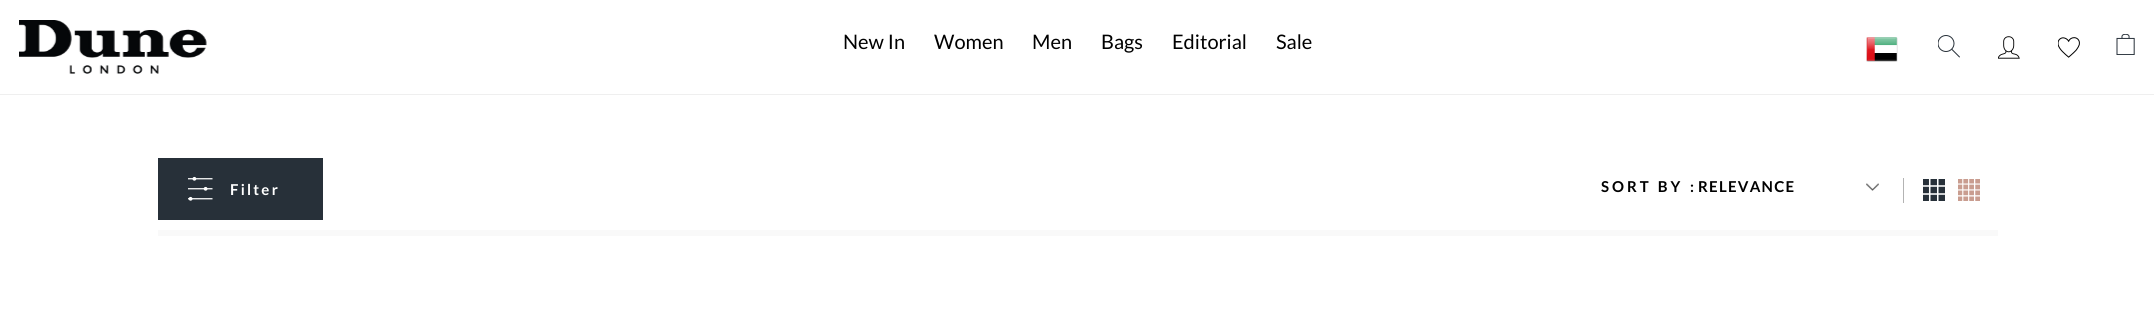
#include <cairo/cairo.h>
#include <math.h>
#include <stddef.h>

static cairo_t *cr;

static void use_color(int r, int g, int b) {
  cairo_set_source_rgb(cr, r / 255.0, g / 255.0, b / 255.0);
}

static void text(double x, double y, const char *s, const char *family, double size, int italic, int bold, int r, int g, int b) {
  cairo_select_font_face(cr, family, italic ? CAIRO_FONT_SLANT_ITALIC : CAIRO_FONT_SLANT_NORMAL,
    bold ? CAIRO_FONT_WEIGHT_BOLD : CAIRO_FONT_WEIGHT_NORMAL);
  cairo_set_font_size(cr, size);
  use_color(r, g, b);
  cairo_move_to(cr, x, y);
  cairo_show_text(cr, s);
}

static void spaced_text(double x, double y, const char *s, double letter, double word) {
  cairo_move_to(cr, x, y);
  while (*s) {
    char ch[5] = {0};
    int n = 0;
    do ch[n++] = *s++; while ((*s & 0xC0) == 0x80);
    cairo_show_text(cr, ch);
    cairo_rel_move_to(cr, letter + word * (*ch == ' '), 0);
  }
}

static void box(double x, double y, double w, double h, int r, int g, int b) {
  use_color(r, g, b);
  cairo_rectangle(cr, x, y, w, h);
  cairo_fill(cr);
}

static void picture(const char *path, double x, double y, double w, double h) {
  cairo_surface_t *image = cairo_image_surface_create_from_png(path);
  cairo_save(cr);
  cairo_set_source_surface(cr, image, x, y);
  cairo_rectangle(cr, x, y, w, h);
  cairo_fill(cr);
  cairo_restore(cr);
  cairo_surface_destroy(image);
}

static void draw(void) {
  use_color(255, 255, 255);
  cairo_paint(cr);
  box(0, 94, 2154, 1, 239, 239, 239);
  picture("img_01.png", 19, 20, 188, 54);
  picture("img_02.png", 1866, 37, 32, 25);
  picture("img_03.png", 1938, 35, 22, 23);
  picture("img_04.png", 1998, 36, 22, 23);
  picture("img_05.png", 2058, 37, 22, 21);
  picture("img_06.png", 2116, 34, 19, 21);
  box(158, 158, 165, 62, 39, 48, 57);
  picture("img_07.png", 188, 176, 25, 25);
  picture("img_08.png", 1866, 183, 13, 8);
  box(1903, 178, 1, 25, 179, 179, 179);
  picture("img_09.png", 1923, 179, 22, 22);
  picture("img_10.png", 1958, 179, 22, 22);
  box(158, 230, 1840, 6, 249, 249, 249);
  text(843, 49, "New In", "Lato", 20, 0, 0, 0, 0, 0);
  text(934, 49, "Women", "Lato", 20, 0, 0, 0, 0, 0);
  text(1032, 49, "Men", "Lato", 20, 0, 0, 0, 0, 0);
  text(1101, 49, "Bags", "Lato", 20, 0, 0, 0, 0, 0);
  text(1172, 49, "Editorial", "Lato", 20, 0, 0, 0, 0, 0);
  text(1276, 49, "Sale", "Lato", 20, 0, 0, 0, 0, 0);
  cairo_select_font_face(cr, "Lato", CAIRO_FONT_SLANT_NORMAL, CAIRO_FONT_WEIGHT_BOLD);
  cairo_set_font_size(cr, 15);
  use_color(255, 255, 255);
  spaced_text(230, 195, "Filter", 2.25, 0);
  use_color(0, 0, 0);
  spaced_text(1601, 192, "SORT BY", 3, 0);
  text(1690, 192, ":", "Lato", 15, 0, 1, 0, 0, 0);
  spaced_text(1698, 192, "RELEVANCE", 1.25, 0);
}

int main(void) {
  cairo_surface_t *surface = cairo_image_surface_create(CAIRO_FORMAT_RGB24, 2154, 312);
  cr = cairo_create(surface);
  cairo_font_options_t *options = cairo_font_options_create();
  cairo_font_options_set_hint_metrics(options, CAIRO_HINT_METRICS_OFF);
  cairo_font_options_set_hint_style(options, CAIRO_HINT_STYLE_NONE);
  cairo_set_font_options(cr, options);
  cairo_set_miter_limit(cr, 4);
  draw();
  cairo_surface_write_to_png(surface, "out.png");
  cairo_font_options_destroy(options);
  cairo_destroy(cr);
  cairo_surface_destroy(surface);
  return 0;
}
